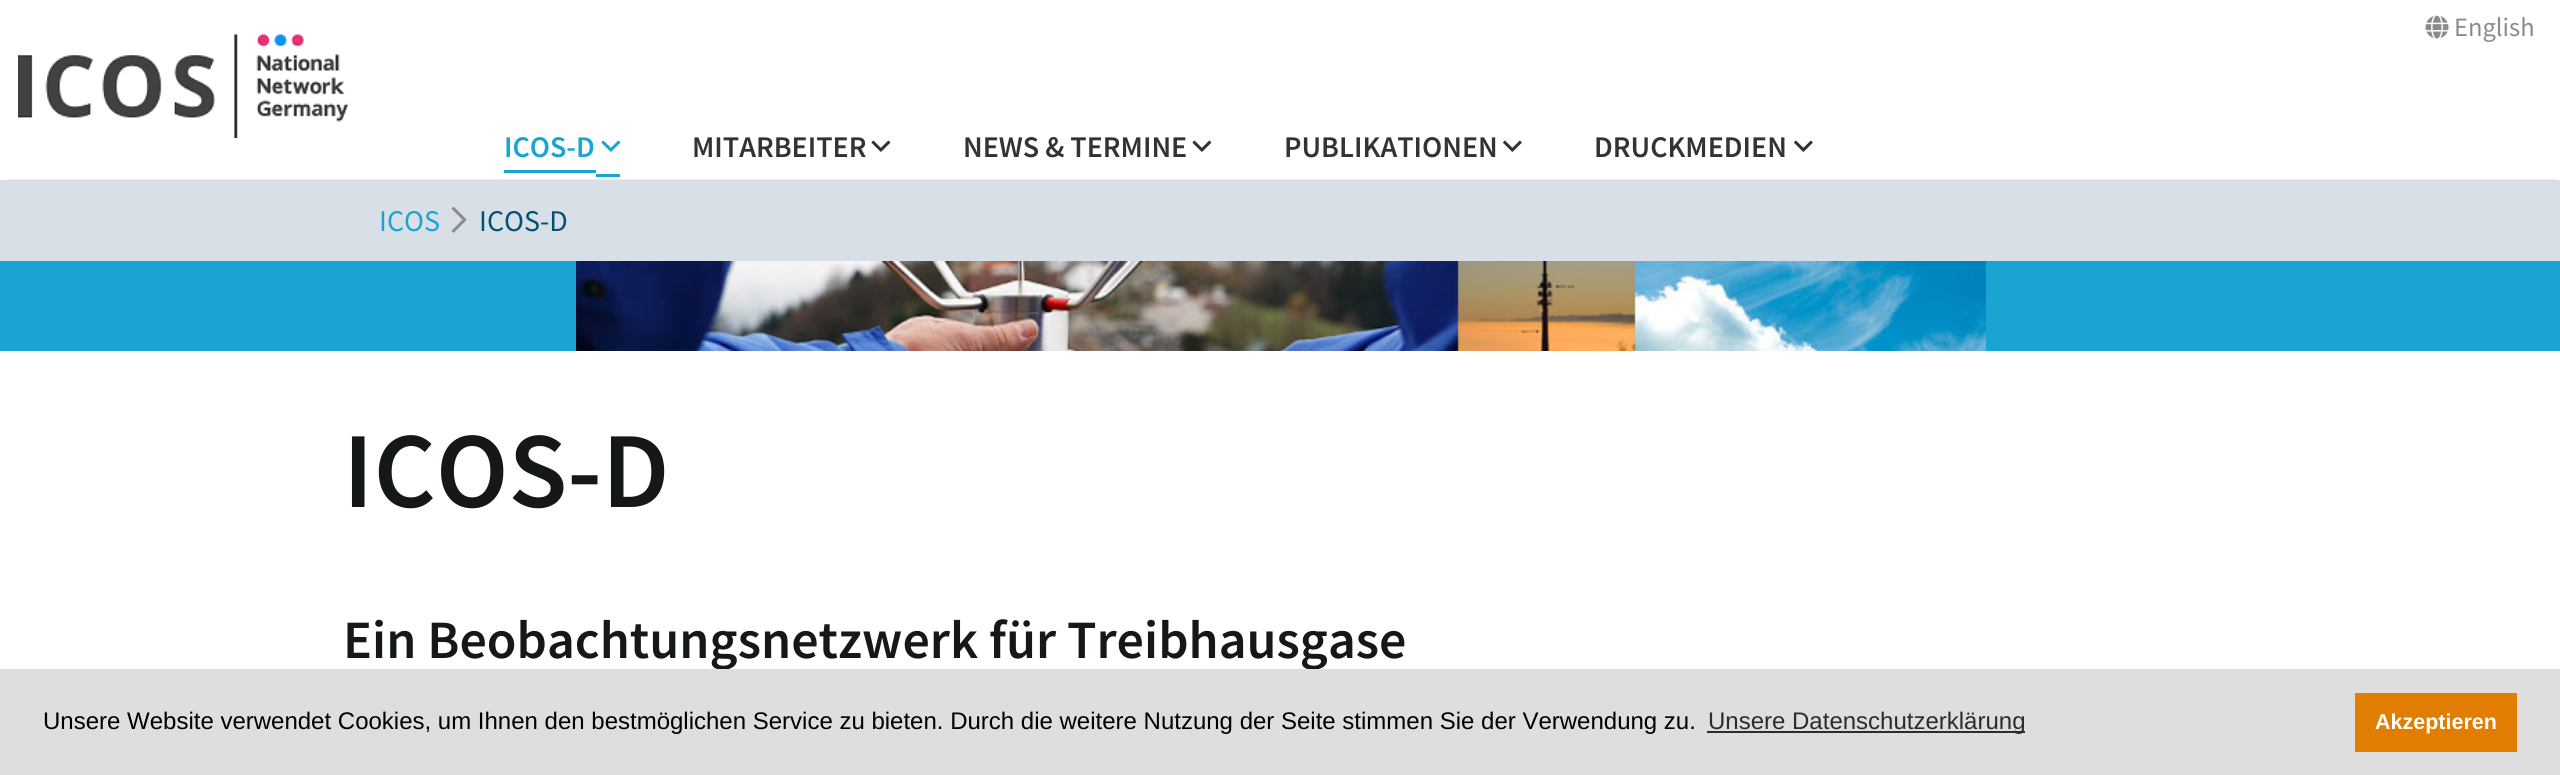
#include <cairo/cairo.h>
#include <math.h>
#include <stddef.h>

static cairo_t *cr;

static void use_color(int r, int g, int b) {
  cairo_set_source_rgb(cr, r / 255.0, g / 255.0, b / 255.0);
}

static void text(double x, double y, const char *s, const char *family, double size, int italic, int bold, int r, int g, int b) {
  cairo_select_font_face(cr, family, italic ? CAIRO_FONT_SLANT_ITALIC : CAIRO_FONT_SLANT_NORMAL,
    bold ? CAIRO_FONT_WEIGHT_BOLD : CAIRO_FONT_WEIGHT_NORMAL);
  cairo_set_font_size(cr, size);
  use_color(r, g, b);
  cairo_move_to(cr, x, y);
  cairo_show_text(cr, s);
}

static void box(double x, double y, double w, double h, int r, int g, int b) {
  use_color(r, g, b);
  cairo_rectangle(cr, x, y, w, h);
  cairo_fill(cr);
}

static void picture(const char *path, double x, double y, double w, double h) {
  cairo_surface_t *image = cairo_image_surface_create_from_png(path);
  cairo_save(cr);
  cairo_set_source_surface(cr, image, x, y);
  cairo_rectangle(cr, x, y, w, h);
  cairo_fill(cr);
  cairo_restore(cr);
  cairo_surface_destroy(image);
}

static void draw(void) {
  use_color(255, 255, 255);
  cairo_paint(cr);
  box(6, 179, 2550, 1, 238, 238, 238);
  picture("img_01.png", 18, 34, 330, 104);
  picture("img_02.png", 2425, 15, 24, 24);
  box(504, 170, 92, 3, 26, 164, 210);
  box(596, 174, 24, 3, 26, 164, 210);
  picture("img_03.png", 601, 140, 20, 12);
  picture("img_04.png", 871, 140, 20, 12);
  picture("img_04.png", 1192, 140, 20, 12);
  picture("img_05.png", 1503, 140, 19, 12);
  picture("img_05.png", 1794, 140, 19, 12);
  box(0, 180, 2560, 81, 217, 223, 230);
  picture("img_06.png", 451, 206, 16, 27);
  box(0, 261, 2560, 90, 26, 164, 210);
  picture("img_07.png", 576, 261, 1410, 90);
  text(2454, 36, "English", "Source Sans Pro", 26.5, 0, 0, 138, 139, 140);
  text(504, 157, "ICOS-D", "Source Sans Pro SemiBold", 30, 0, 0, 26, 164, 210);
  text(692, 157, "MITARBEITER", "Source Sans Pro SemiBold", 30, 0, 0, 51, 51, 51);
  text(963, 157, "NEWS & TERMINE", "Source Sans Pro SemiBold", 30, 0, 0, 51, 51, 51);
  text(1284, 157, "PUBLIKATIONEN", "Source Sans Pro SemiBold", 30, 0, 0, 51, 51, 51);
  text(1594, 157, "DRUCKMEDIEN", "Source Sans Pro SemiBold", 30, 0, 0, 51, 51, 51);
  text(379, 231, "ICOS", "Source Sans Pro", 30, 0, 0, 26, 164, 210);
  text(479, 231, "ICOS-D", "Source Sans Pro", 30, 0, 0, 0, 80, 120);
  text(343, 507, "ICOS-D", "Source Sans Pro SemiBold", 108, 0, 0, 21, 24, 25);
  text(343, 658, "Ein Beobachtungsnetzwerk für Treibhausgase", "Source Sans Pro SemiBold", 54, 0, 0, 21, 24, 25);
  box(0, 669, 2560, 106, 222, 222, 222);
  text(43, 729, "Unsere Website verwendet Cookies, um Ihnen den bestmöglichen Service zu bieten. Durch die weitere Nutzung der Seite stimmen Sie der Verwendung zu.", "Liberation Sans", 24, 0, 0, 0, 0, 0);
  box(1707, 731, 318, 2, 44, 44, 44);
  text(1708, 729, "Unsere Datenschutzerklärung", "Liberation Sans", 24, 0, 0, 44, 44, 44);
  box(2355, 693, 162, 59, 225, 125, 0);
  text(2375, 729, "Akzeptieren", "Liberation Sans", 21.5, 0, 1, 255, 255, 255);
}

int main(void) {
  cairo_surface_t *surface = cairo_image_surface_create(CAIRO_FORMAT_RGB24, 2560, 775);
  cr = cairo_create(surface);
  cairo_font_options_t *options = cairo_font_options_create();
  cairo_font_options_set_hint_metrics(options, CAIRO_HINT_METRICS_OFF);
  cairo_font_options_set_hint_style(options, CAIRO_HINT_STYLE_NONE);
  cairo_set_font_options(cr, options);
  cairo_set_miter_limit(cr, 4);
  draw();
  cairo_surface_write_to_png(surface, "out.png");
  cairo_font_options_destroy(options);
  cairo_destroy(cr);
  cairo_surface_destroy(surface);
  return 0;
}
